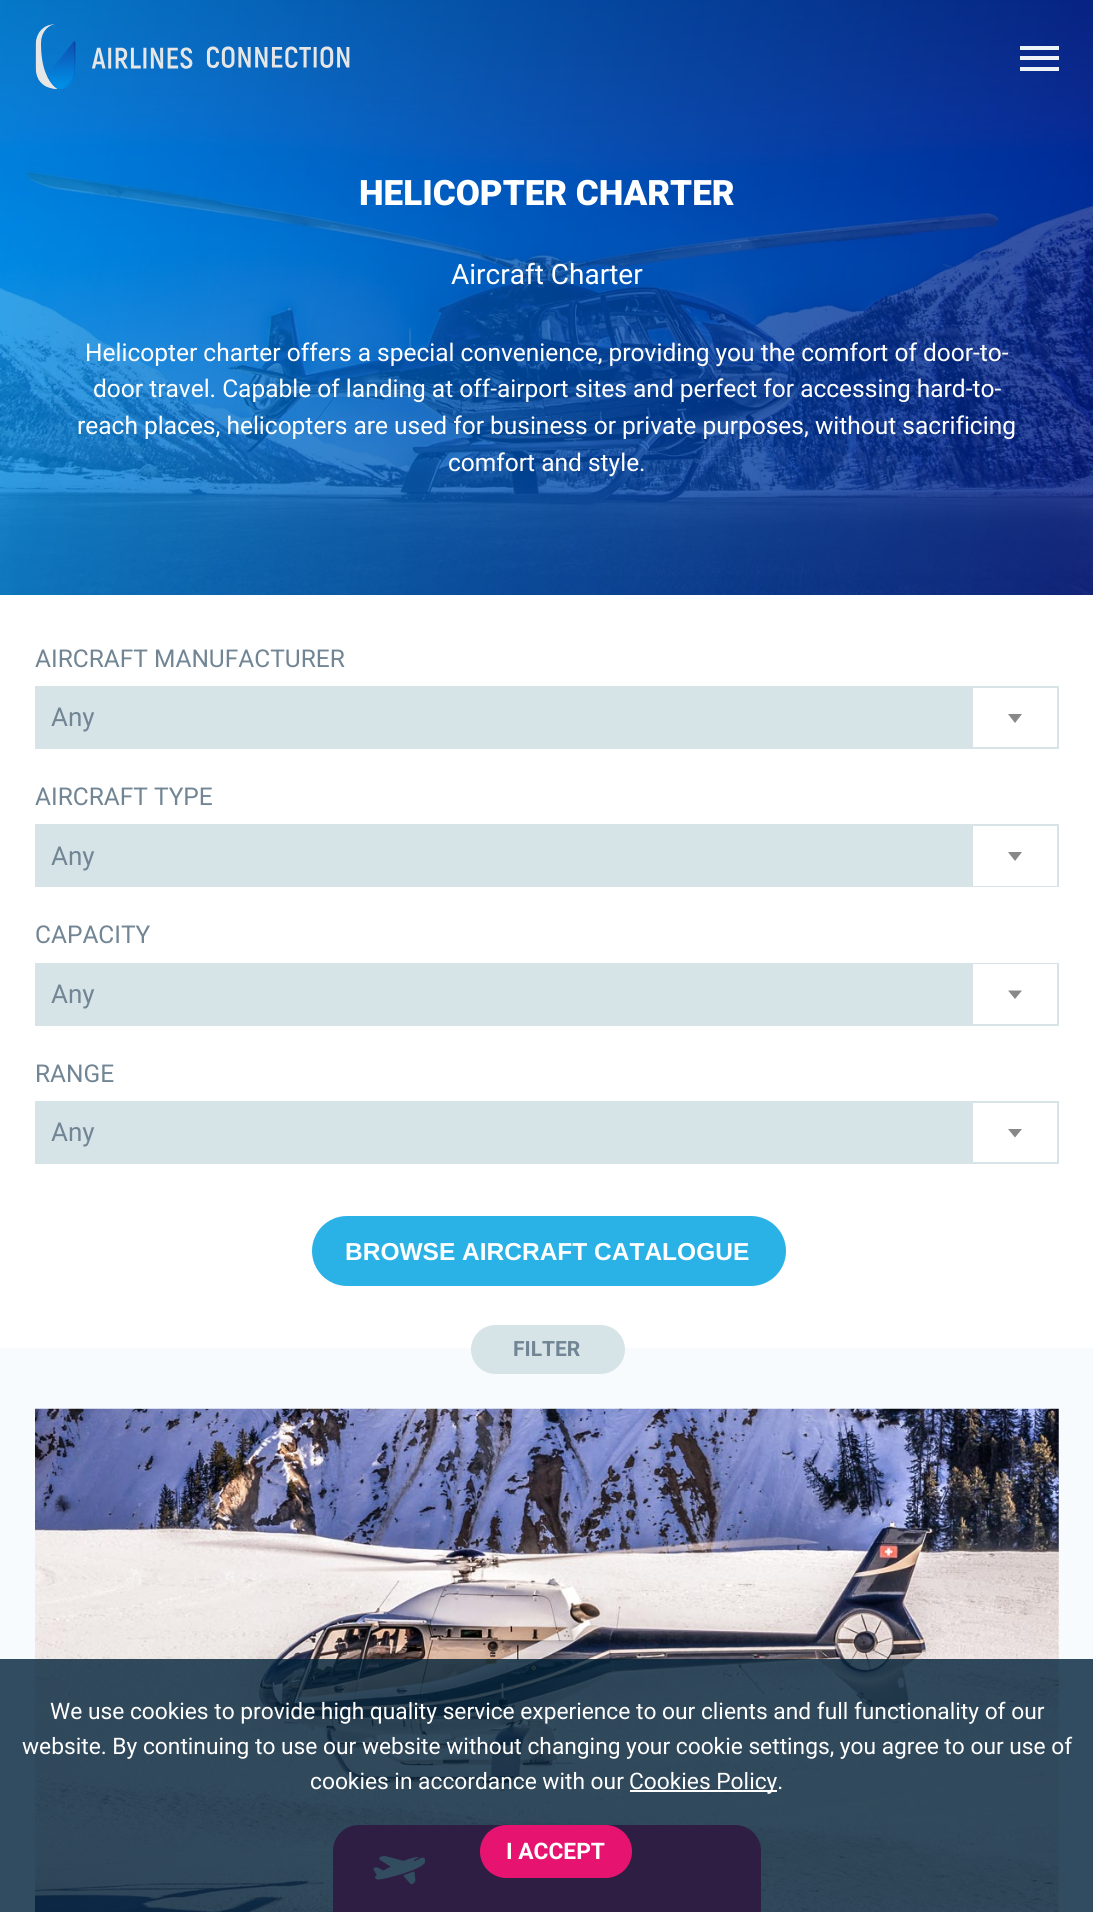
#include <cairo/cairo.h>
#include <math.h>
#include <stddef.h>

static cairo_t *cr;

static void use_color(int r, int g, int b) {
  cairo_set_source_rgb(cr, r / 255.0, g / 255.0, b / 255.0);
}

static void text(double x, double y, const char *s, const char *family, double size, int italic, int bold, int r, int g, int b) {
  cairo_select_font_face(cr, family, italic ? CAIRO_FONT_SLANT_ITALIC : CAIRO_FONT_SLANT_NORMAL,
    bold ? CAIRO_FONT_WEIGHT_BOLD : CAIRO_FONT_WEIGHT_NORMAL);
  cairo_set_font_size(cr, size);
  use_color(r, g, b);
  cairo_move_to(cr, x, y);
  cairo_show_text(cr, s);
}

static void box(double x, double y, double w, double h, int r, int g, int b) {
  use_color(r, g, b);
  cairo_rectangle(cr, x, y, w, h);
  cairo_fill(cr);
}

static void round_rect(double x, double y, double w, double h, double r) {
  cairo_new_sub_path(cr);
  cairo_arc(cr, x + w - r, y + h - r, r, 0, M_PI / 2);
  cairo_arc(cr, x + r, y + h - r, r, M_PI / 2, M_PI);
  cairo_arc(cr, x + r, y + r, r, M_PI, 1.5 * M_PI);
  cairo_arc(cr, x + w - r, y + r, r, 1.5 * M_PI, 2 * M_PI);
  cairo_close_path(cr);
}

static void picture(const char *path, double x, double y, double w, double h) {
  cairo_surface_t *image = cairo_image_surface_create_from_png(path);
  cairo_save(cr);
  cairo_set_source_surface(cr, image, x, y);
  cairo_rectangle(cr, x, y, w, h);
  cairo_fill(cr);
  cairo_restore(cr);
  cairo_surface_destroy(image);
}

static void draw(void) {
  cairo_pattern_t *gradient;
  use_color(247, 251, 253);
  cairo_paint(cr);
  gradient = cairo_pattern_create_linear(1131, 432, -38, 163);
  cairo_pattern_add_color_stop_rgba(gradient, 0, 0, 0.094, 0.51, 1);
  cairo_pattern_add_color_stop_rgba(gradient, 0.47, 0, 0.306, 0.69, 1);
  cairo_pattern_add_color_stop_rgba(gradient, 1, 0, 0.569, 0.91, 1);
  cairo_set_source(cr, gradient);
  cairo_pattern_destroy(gradient);
  cairo_rectangle(cr, 0, 0, 1093, 595);
  cairo_fill(cr);
  picture("img_02.png", 0, 0, 1093, 595);
  picture("img_01.png", 35, 24, 315, 65);
  box(1020, 46, 39, 4, 237, 243, 247);
  box(1020, 56, 39, 4, 237, 243, 247);
  box(1020, 67, 39, 4, 237, 243, 247);
  box(0, 595, 1093, 753, 255, 255, 255);
  box(35, 686, 1024, 63, 214, 228, 232);
  box(973, 688, 84, 59, 255, 255, 255);
  use_color(136, 136, 136);
  cairo_new_path(cr);
  cairo_move_to(cr, 1008, 714);
  cairo_line_to(cr, 1022, 714);
  cairo_line_to(cr, 1015, 723);
  cairo_close_path(cr);
  cairo_fill(cr);
  box(35, 824, 1024, 63, 214, 228, 232);
  box(973, 826, 84, 60, 255, 255, 255);
  use_color(136, 136, 136);
  cairo_new_path(cr);
  cairo_move_to(cr, 1008, 852);
  cairo_line_to(cr, 1022, 852);
  cairo_line_to(cr, 1015, 861);
  cairo_close_path(cr);
  cairo_fill(cr);
  box(35, 963, 1024, 63, 214, 228, 232);
  box(973, 964, 84, 60, 255, 255, 255);
  use_color(136, 136, 136);
  cairo_new_path(cr);
  cairo_move_to(cr, 1008, 990.5);
  cairo_line_to(cr, 1022, 990.5);
  cairo_line_to(cr, 1015, 999);
  cairo_close_path(cr);
  cairo_fill(cr);
  box(35, 1101, 1024, 63, 214, 228, 232);
  box(973, 1103, 84, 59, 255, 255, 255);
  use_color(136, 136, 136);
  cairo_new_path(cr);
  cairo_move_to(cr, 1008, 1129);
  cairo_line_to(cr, 1022, 1129);
  cairo_line_to(cr, 1015, 1137.5);
  cairo_close_path(cr);
  cairo_fill(cr);
  use_color(42, 178, 231);
  round_rect(312, 1216, 474, 70, 35);
  cairo_fill(cr);
  use_color(214, 228, 232);
  round_rect(471, 1325, 154, 49, 24.5);
  cairo_fill(cr);
  picture("img_03.png", 35, 1408, 1024, 504);
  use_color(231, 19, 113);
  cairo_new_path(cr);
  cairo_move_to(cr, 359, 1825);
  cairo_line_to(cr, 735, 1825);
  cairo_curve_to(cr, 749.5, 1825, 761, 1836.5, 761, 1851);
  cairo_line_to(cr, 761, 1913);
  cairo_line_to(cr, 333, 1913);
  cairo_line_to(cr, 333, 1851);
  cairo_curve_to(cr, 333, 1836.5, 344.5, 1825, 359, 1825);
  cairo_close_path(cr);
  cairo_fill(cr);
  picture("img_04.png", 373, 1855, 52, 30);
  cairo_set_source_rgba(cr, 0.004, 0.129, 0.224, 0.8);
  cairo_rectangle(cr, 0, 1659, 1093, 253);
  cairo_fill(cr);
  box(630, 1790, 147, 2, 255, 255, 255);
  use_color(231, 19, 113);
  round_rect(480, 1825, 152, 53, 26.5);
  cairo_fill(cr);
  text(359, 205, "HELICOPTER CHARTER", "Roboto Black", 35, 0, 0, 255, 255, 255);
  text(451, 284, "Aircraft Charter", "Roboto", 28, 0, 0, 255, 255, 255);
  text(85, 361, "Helicopter charter offers a special convenience, providing you the comfort of door-to-", "Roboto", 24.5, 0, 0, 255, 255, 255);
  text(93, 397, "door travel. Capable of landing at off-airport sites and perfect for accessing hard-to-", "Roboto", 24.5, 0, 0, 255, 255, 255);
  text(77, 434, "reach places, helicopters are used for business or private purposes, without sacrificing", "Roboto", 24.5, 0, 0, 255, 255, 255);
  text(448, 471, "comfort and style.", "Roboto", 24.5, 0, 0, 255, 255, 255);
  text(35, 667, "AIRCRAFT MANUFACTURER", "Roboto", 24.5, 0, 0, 113, 133, 148);
  text(51, 726, "Any", "Roboto", 26, 0, 0, 113, 133, 148);
  text(35, 805, "AIRCRAFT TYPE", "Roboto", 24.5, 0, 0, 113, 133, 148);
  text(51, 865, "Any", "Roboto", 26, 0, 0, 113, 133, 148);
  text(35, 943, "CAPACITY", "Roboto", 24.5, 0, 0, 113, 133, 148);
  text(51, 1003, "Any", "Roboto", 26, 0, 0, 113, 133, 148);
  text(35, 1082, "RANGE", "Roboto", 24.5, 0, 0, 113, 133, 148);
  text(51, 1141, "Any", "Roboto", 26, 0, 0, 113, 133, 148);
  text(345, 1260, "BROWSE AIRCRAFT CATALOGUE", "Liberation Sans", 24.5, 0, 1, 255, 255, 255);
  text(513, 1356, "FILTER", "Roboto", 21, 0, 1, 113, 133, 148);
  text(50, 1719, "We use cookies to provide high quality service experience to our clients and full functionality of our", "Roboto", 22.75, 0, 0, 255, 255, 255);
  text(22, 1754, "website. By continuing to use our website without changing your cookie settings, you agree to our use of", "Roboto", 22.75, 0, 0, 255, 255, 255);
  text(310, 1789, "cookies in accordance with our", "Roboto", 22.75, 0, 0, 255, 255, 255);
  text(629, 1789, "Cookies Policy.", "Roboto", 22.75, 0, 0, 255, 255, 255);
  text(506, 1859, "I ACCEPT", "Roboto", 22.75, 0, 1, 255, 255, 255);
}

int main(void) {
  cairo_surface_t *surface = cairo_image_surface_create(CAIRO_FORMAT_RGB24, 1093, 1912);
  cr = cairo_create(surface);
  cairo_font_options_t *options = cairo_font_options_create();
  cairo_font_options_set_hint_metrics(options, CAIRO_HINT_METRICS_OFF);
  cairo_font_options_set_hint_style(options, CAIRO_HINT_STYLE_NONE);
  cairo_set_font_options(cr, options);
  cairo_set_miter_limit(cr, 4);
  draw();
  cairo_surface_write_to_png(surface, "out.png");
  cairo_font_options_destroy(options);
  cairo_destroy(cr);
  cairo_surface_destroy(surface);
  return 0;
}
